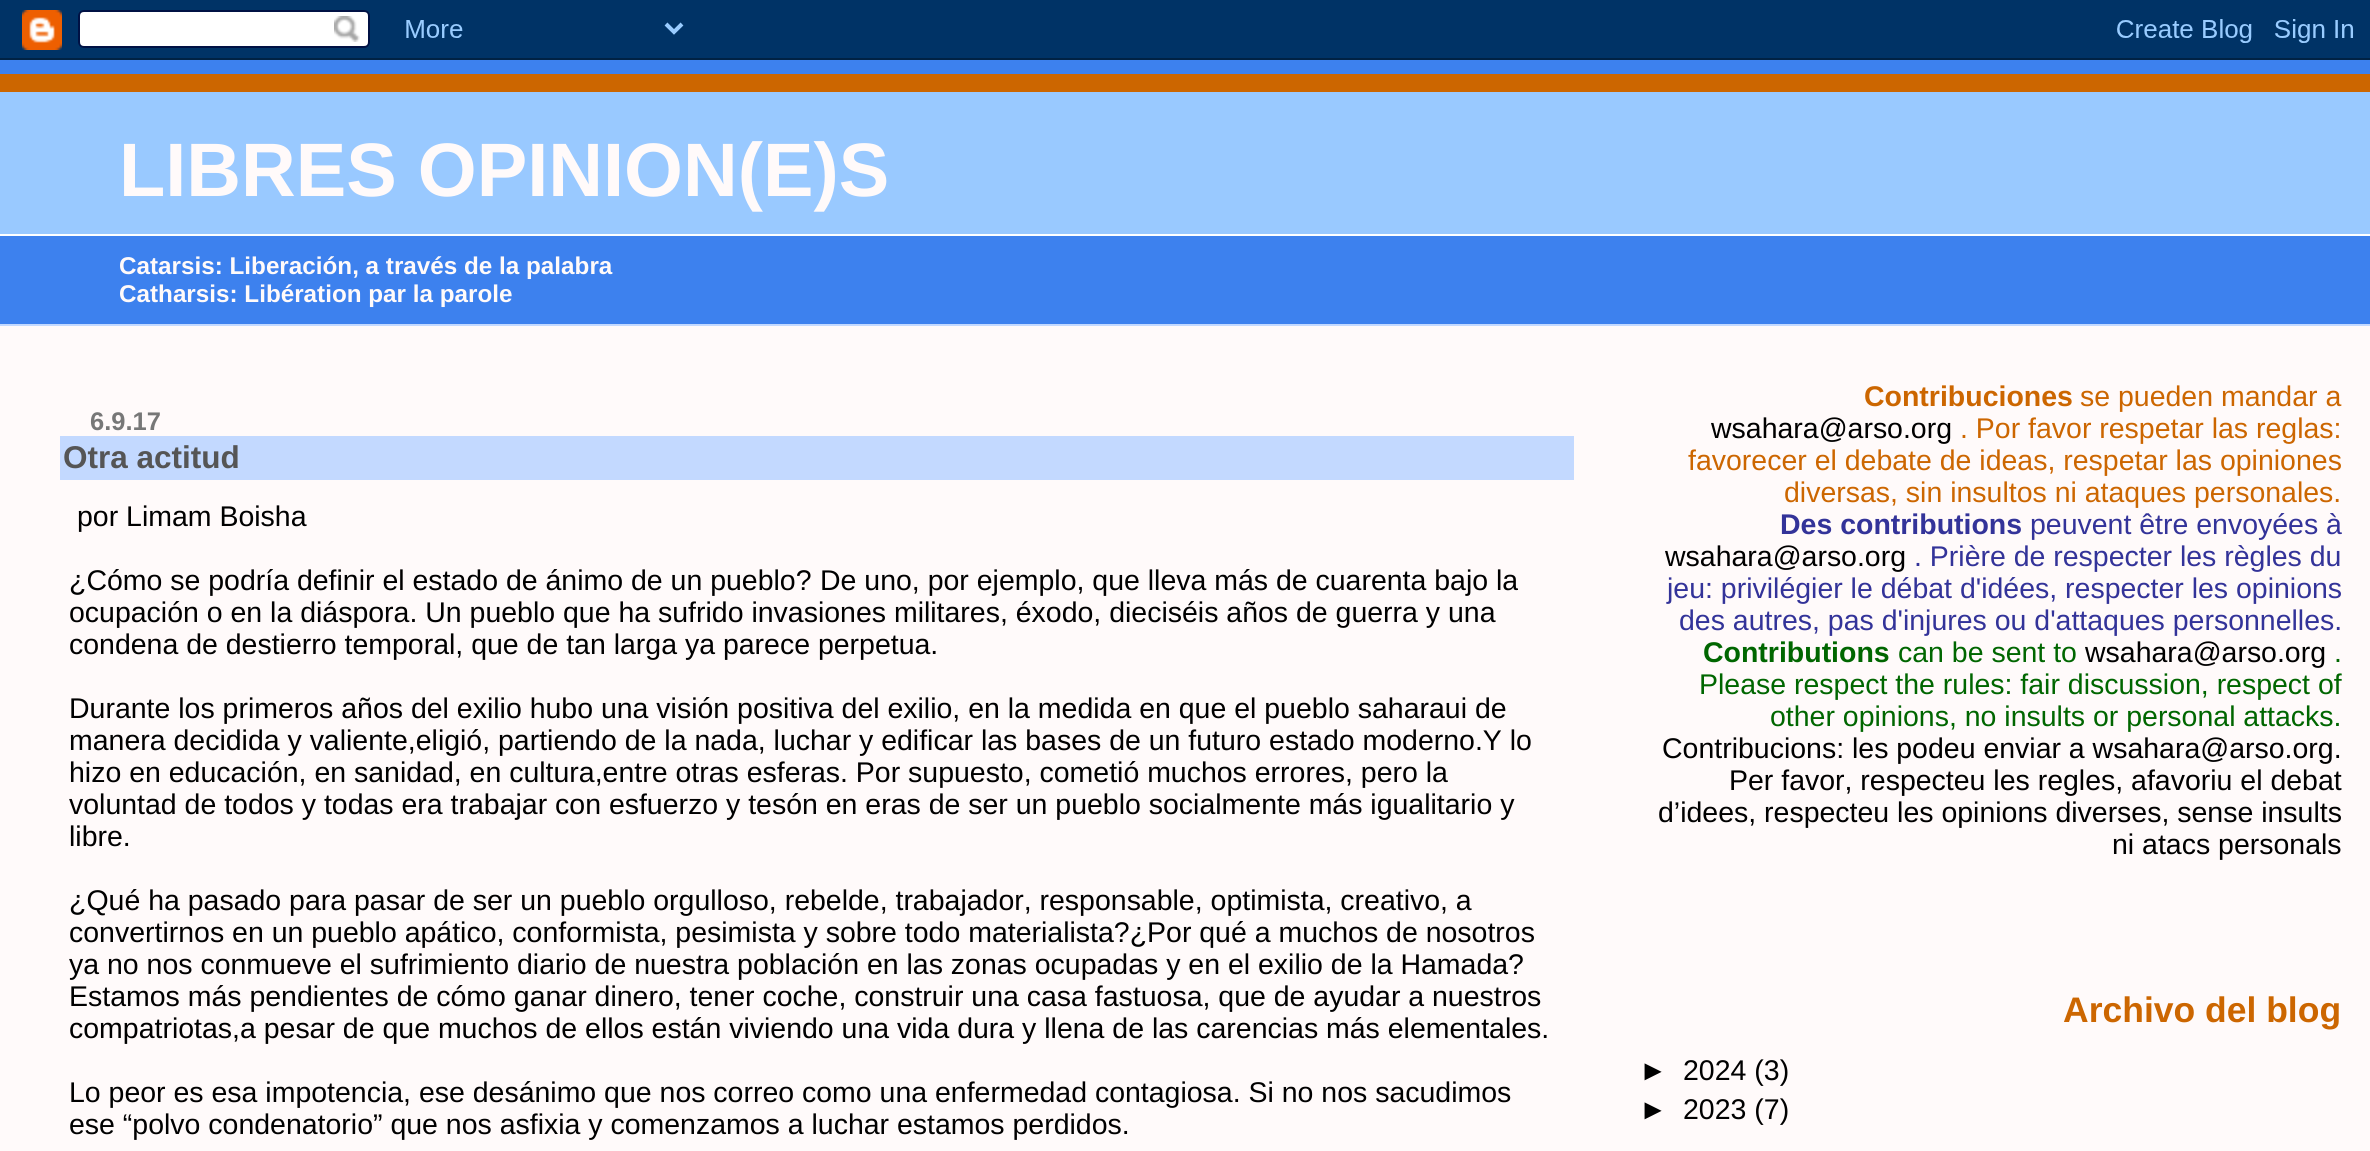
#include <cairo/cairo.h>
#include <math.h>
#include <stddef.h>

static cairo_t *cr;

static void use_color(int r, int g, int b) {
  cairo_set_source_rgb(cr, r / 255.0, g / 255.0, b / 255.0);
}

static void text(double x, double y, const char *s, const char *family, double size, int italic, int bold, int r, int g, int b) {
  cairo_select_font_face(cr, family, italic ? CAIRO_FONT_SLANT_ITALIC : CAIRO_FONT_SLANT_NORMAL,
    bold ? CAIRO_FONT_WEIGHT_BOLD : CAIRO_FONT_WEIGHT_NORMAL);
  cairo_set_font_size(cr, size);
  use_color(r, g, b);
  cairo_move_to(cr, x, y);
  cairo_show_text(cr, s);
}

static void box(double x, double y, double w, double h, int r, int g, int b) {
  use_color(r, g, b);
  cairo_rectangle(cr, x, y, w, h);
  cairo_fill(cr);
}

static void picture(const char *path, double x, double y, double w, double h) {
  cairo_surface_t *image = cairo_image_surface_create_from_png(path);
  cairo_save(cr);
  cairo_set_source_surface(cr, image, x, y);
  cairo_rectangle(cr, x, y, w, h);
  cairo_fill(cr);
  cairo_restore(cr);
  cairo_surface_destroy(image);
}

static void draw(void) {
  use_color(255, 250, 250);
  cairo_paint(cr);
  picture("img_01.png", 0, 0, 2370, 60);
  box(0, 60, 2370, 264, 61, 129, 238);
  box(0, 324, 2370, 2, 195, 217, 255);
  box(0, 92, 2370, 142, 153, 201, 255);
  box(0, 74, 2370, 18, 204, 102, 0);
  box(0, 234, 2370, 2, 255, 255, 255);
  box(60, 436, 1514, 44, 195, 217, 255);
  text(119, 196, "LIBRES OPINION(E)S", "Liberation Sans", 75.75, 0, 1, 255, 250, 250);
  text(119, 274, "Catarsis: Liberación, a través de la palabra", "Liberation Sans", 24.25, 0, 1, 255, 250, 250);
  text(119, 302, "Catharsis: Libération par la parole", "Liberation Sans", 24.25, 0, 1, 255, 250, 250);
  text(90, 430, "6.9.17", "Liberation Sans", 25.5, 0, 1, 119, 119, 119);
  text(63, 468, "Otra actitud", "Liberation Sans", 31.5, 0, 1, 85, 85, 85);
  text(77, 526, "por Limam Boisha", "Liberation Sans", 28.48, 0, 0, 0, 0, 0);
  text(69, 590, "¿Cómo se podría definir el estado de ánimo de un pueblo?", "Liberation Sans", 28.48, 0, 0, 0, 0, 0);
  text(820, 590, "De uno, por ejemplo, que lleva más de cuarenta bajo la", "Liberation Sans", 28.48, 0, 0, 0, 0, 0);
  text(69, 622, "ocupación o en la diáspora. Un pueblo que ha sufrido invasiones militares, éxodo, dieciséis años de guerra y una", "Liberation Sans", 28.48, 0, 0, 0, 0, 0);
  text(69, 654, "condena de destierro temporal, que de tan larga ya parece perpetua.", "Liberation Sans", 28.48, 0, 0, 0, 0, 0);
  text(69, 718, "Durante los primeros años del exilio hubo una visión positiva del exilio, en la medida en que el pueblo saharaui de", "Liberation Sans", 28.48, 0, 0, 0, 0, 0);
  text(69, 750, "manera decidida y valiente,eligió, partiendo de la nada, luchar y edificar las bases de un futuro estado moderno.Y lo", "Liberation Sans", 28.48, 0, 0, 0, 0, 0);
  text(69, 782, "hizo en educación, en sanidad, en cultura,entre otras esferas. Por supuesto, cometió muchos errores, pero la", "Liberation Sans", 28.48, 0, 0, 0, 0, 0);
  text(69, 814, "voluntad de todos y todas era trabajar con esfuerzo y tesón en eras de ser un pueblo socialmente más igualitario y", "Liberation Sans", 28.48, 0, 0, 0, 0, 0);
  text(69, 846, "libre.", "Liberation Sans", 28.48, 0, 0, 0, 0, 0);
  text(69, 910, "¿Qué ha pasado para pasar de ser un pueblo orgulloso, rebelde, trabajador, responsable, optimista, creativo, a", "Liberation Sans", 28.48, 0, 0, 0, 0, 0);
  text(69, 942, "convertirnos en un pueblo apático, conformista, pesimista y sobre todo materialista?¿Por qué a muchos de nosotros", "Liberation Sans", 28.48, 0, 0, 0, 0, 0);
  text(69, 974, "ya no nos conmueve el sufrimiento diario de nuestra población en las zonas ocupadas y en el exilio de la Hamada?", "Liberation Sans", 28.48, 0, 0, 0, 0, 0);
  text(69, 1006, "Estamos más pendientes de cómo ganar dinero, tener coche, construir una casa fastuosa, que de ayudar a", "Liberation Sans", 28.48, 0, 0, 0, 0, 0);
  text(1432, 1006, "nuestros", "Liberation Sans", 28.48, 0, 0, 0, 0, 0);
  text(69, 1038, "compatriotas,a pesar de que muchos de ellos están viviendo una vida dura y llena de las carencias más elementales.", "Liberation Sans", 28.48, 0, 0, 0, 0, 0);
  text(69, 1102, "Lo peor es esa impotencia, ese desánimo que nos correo como una enfermedad contagiosa. Si no nos sacudimos", "Liberation Sans", 28.48, 0, 0, 0, 0, 0);
  text(69, 1134, "ese “polvo condenatorio” que nos asfixia y comenzamos a luchar estamos perdidos.", "Liberation Sans", 28.48, 0, 0, 0, 0, 0);
  text(1864, 406, "Contribuciones", "Liberation Sans", 28.48, 0, 1, 204, 102, 0);
  text(2080, 406, "se pueden mandar a", "Liberation Sans", 28.48, 0, 0, 204, 102, 0);
  text(1711, 438, "wsahara@arso.org", "Liberation Sans", 28.48, 0, 0, 0, 0, 0);
  text(1960, 438, ". Por favor respetar las reglas:", "Liberation Sans", 28.48, 0, 0, 204, 102, 0);
  text(1688, 470, "favorecer el debate de ideas, respetar las opiniones", "Liberation Sans", 28.48, 0, 0, 204, 102, 0);
  text(1784, 502, "diversas, sin insultos ni ataques personales.", "Liberation Sans", 28.48, 0, 0, 204, 102, 0);
  text(1780, 534, "Des contributions", "Liberation Sans", 28.48, 0, 1, 51, 51, 153);
  text(2030, 534, "peuvent être envoyées à", "Liberation Sans", 28.48, 0, 0, 51, 51, 153);
  text(1665, 566, "wsahara@arso.org", "Liberation Sans", 28.48, 0, 0, 0, 0, 0);
  text(1914, 566, ". Prière de respecter les règles du", "Liberation Sans", 28.48, 0, 0, 51, 51, 153);
  text(1667, 598, "jeu: privilégier le débat d'idées, respecter les opinions", "Liberation Sans", 28.48, 0, 0, 51, 51, 153);
  text(1679, 630, "des autres, pas d'injures ou d'attaques personnelles.", "Liberation Sans", 28.48, 0, 0, 51, 51, 153);
  text(1703, 662, "Contributions", "Liberation Sans", 28.48, 0, 1, 0, 102, 0);
  text(1898, 662, "can be sent to", "Liberation Sans", 28.48, 0, 0, 0, 102, 0);
  text(2085, 662, "wsahara@arso.org", "Liberation Sans", 28.48, 0, 0, 0, 0, 0);
  text(2334, 662, ".", "Liberation Sans", 28.48, 0, 0, 0, 102, 0);
  text(1699, 694, "Please respect the rules: fair discussion, respect of", "Liberation Sans", 28.48, 0, 0, 0, 102, 0);
  text(1770, 726, "other opinions, no insults or personal attacks.", "Liberation Sans", 28.48, 0, 0, 0, 102, 0);
  text(1662, 758, "Contribucions: les podeu enviar a wsahara@arso.org.", "Liberation Sans", 28.48, 0, 0, 0, 0, 0);
  text(1729, 790, "Per favor, respecteu les regles, afavoriu el debat", "Liberation Sans", 28.48, 0, 0, 0, 0, 0);
  text(1658, 822, "d’idees, respecteu les opinions diverses, sense insults", "Liberation Sans", 28.48, 0, 0, 0, 0, 0);
  text(2112, 854, "ni atacs personals", "Liberation Sans", 28.48, 0, 0, 0, 0, 0);
  text(2063, 1022, "Archivo del blog", "Liberation Sans", 35.5, 0, 1, 204, 102, 0);
  text(1639, 1080, "►", "Liberation Sans", 28.5, 0, 0, 0, 0, 0);
  text(1683, 1080, "2024 (3)", "Liberation Sans", 28.5, 0, 0, 0, 0, 0);
  text(1639, 1119, "►", "Liberation Sans", 28.5, 0, 0, 0, 0, 0);
  text(1683, 1119, "2023 (7)", "Liberation Sans", 28.5, 0, 0, 0, 0, 0);
}

int main(void) {
  cairo_surface_t *surface = cairo_image_surface_create(CAIRO_FORMAT_RGB24, 2370, 1151);
  cr = cairo_create(surface);
  cairo_font_options_t *options = cairo_font_options_create();
  cairo_font_options_set_hint_metrics(options, CAIRO_HINT_METRICS_OFF);
  cairo_font_options_set_hint_style(options, CAIRO_HINT_STYLE_NONE);
  cairo_set_font_options(cr, options);
  cairo_set_miter_limit(cr, 4);
  draw();
  cairo_surface_write_to_png(surface, "out.png");
  cairo_font_options_destroy(options);
  cairo_destroy(cr);
  cairo_surface_destroy(surface);
  return 0;
}
